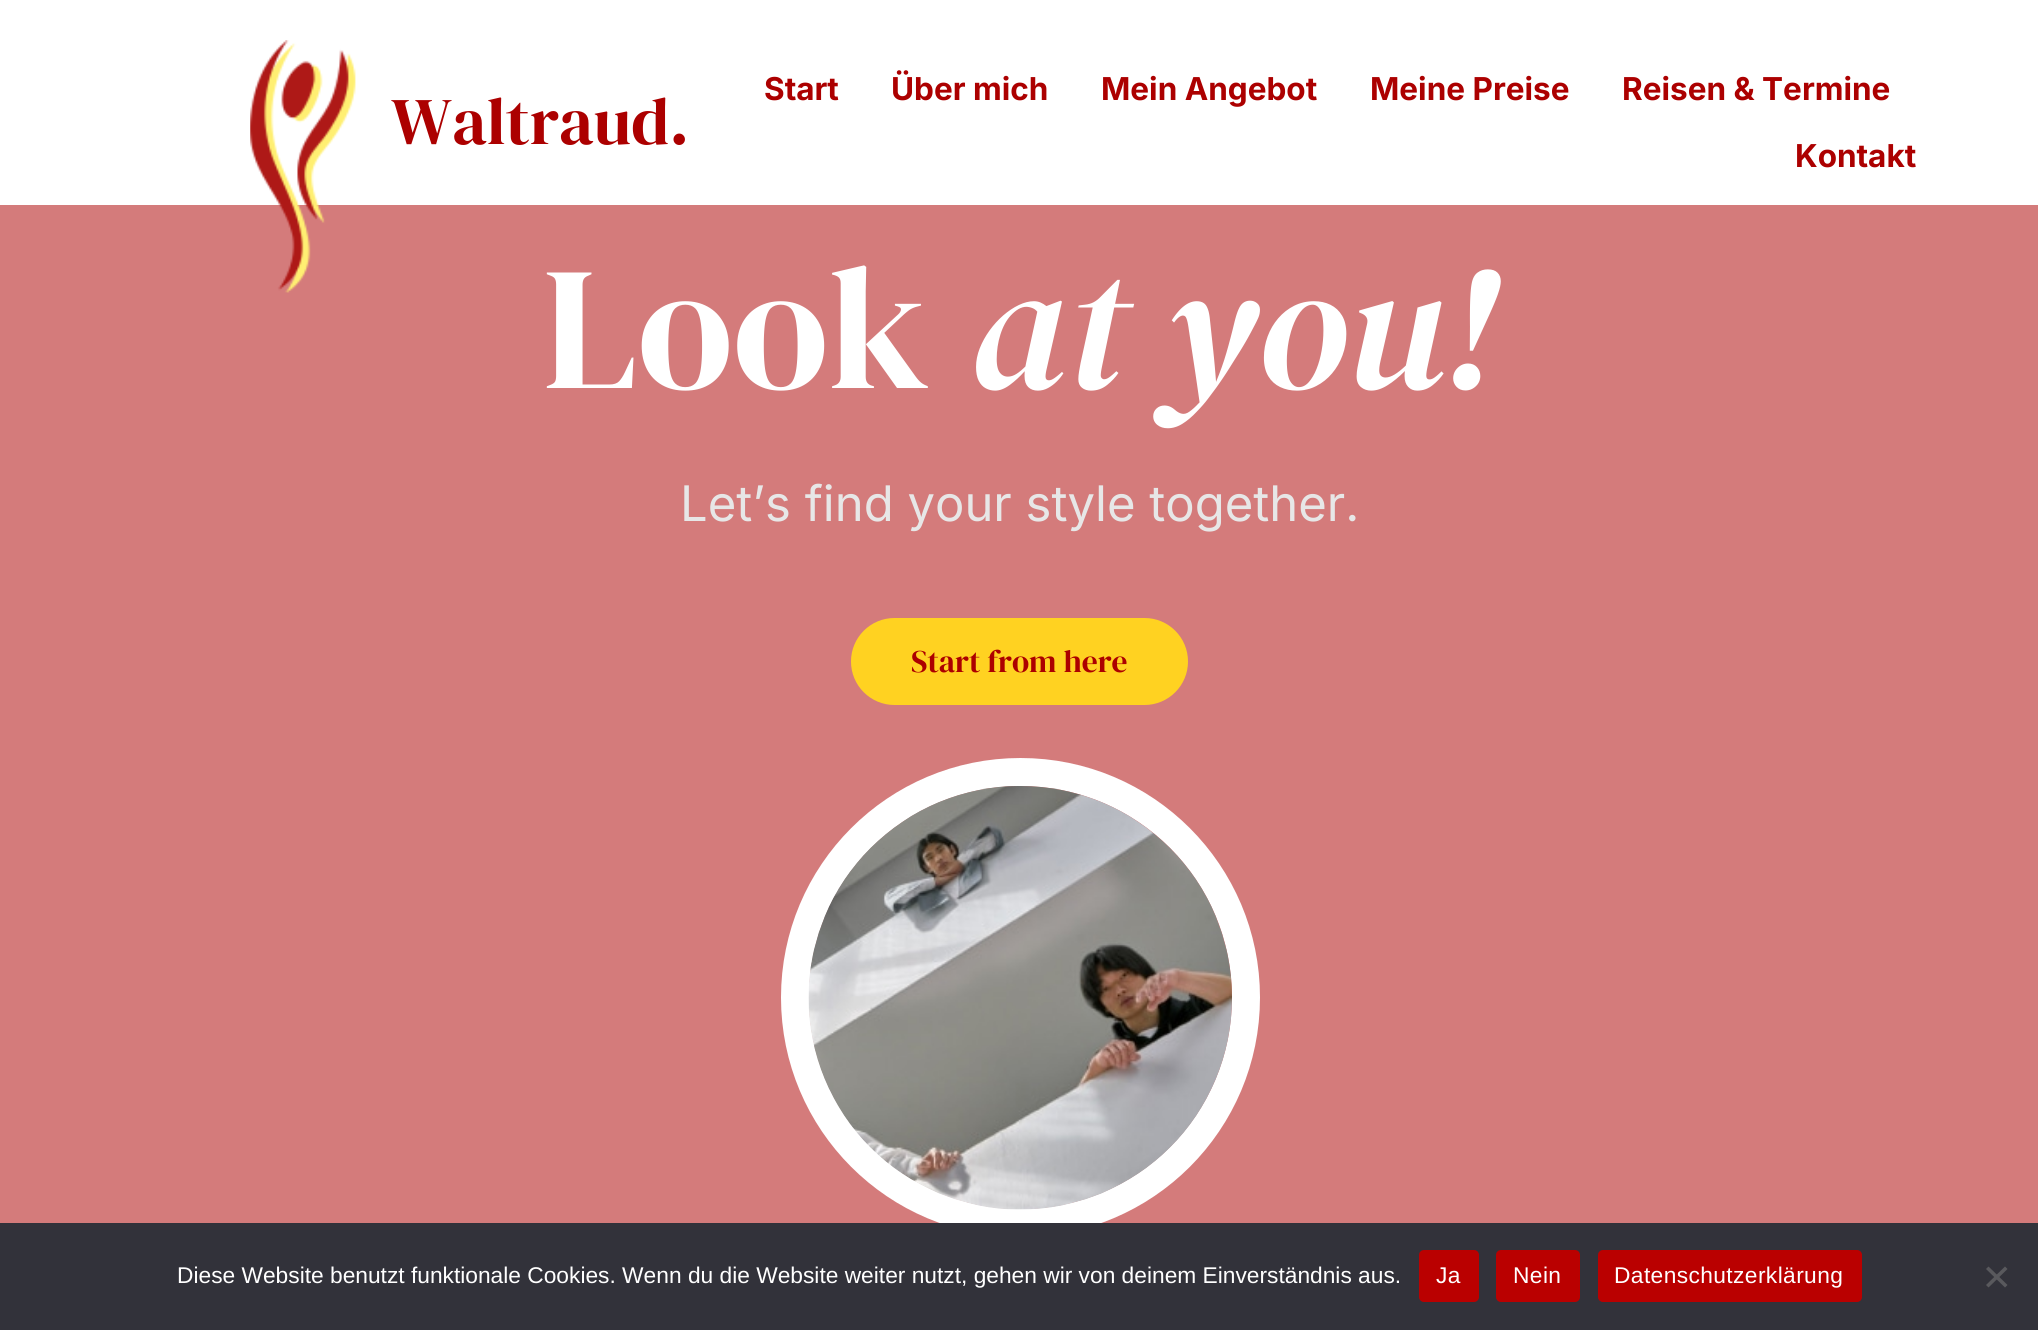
#include <cairo/cairo.h>
#include <math.h>
#include <stddef.h>

static cairo_t *cr;

static void use_color(int r, int g, int b) {
  cairo_set_source_rgb(cr, r / 255.0, g / 255.0, b / 255.0);
}

static void text(double x, double y, const char *s, const char *family, double size, int italic, int bold, int r, int g, int b) {
  cairo_select_font_face(cr, family, italic ? CAIRO_FONT_SLANT_ITALIC : CAIRO_FONT_SLANT_NORMAL,
    bold ? CAIRO_FONT_WEIGHT_BOLD : CAIRO_FONT_WEIGHT_NORMAL);
  cairo_set_font_size(cr, size);
  use_color(r, g, b);
  cairo_move_to(cr, x, y);
  cairo_show_text(cr, s);
}

static void spaced_text(double x, double y, const char *s, double letter, double word) {
  cairo_move_to(cr, x, y);
  while (*s) {
    char ch[5] = {0};
    int n = 0;
    do ch[n++] = *s++; while ((*s & 0xC0) == 0x80);
    cairo_show_text(cr, ch);
    cairo_rel_move_to(cr, letter + word * (*ch == ' '), 0);
  }
}

static void box(double x, double y, double w, double h, int r, int g, int b) {
  use_color(r, g, b);
  cairo_rectangle(cr, x, y, w, h);
  cairo_fill(cr);
}

static void round_rect(double x, double y, double w, double h, double r) {
  cairo_new_sub_path(cr);
  cairo_arc(cr, x + w - r, y + h - r, r, 0, M_PI / 2);
  cairo_arc(cr, x + r, y + h - r, r, M_PI / 2, M_PI);
  cairo_arc(cr, x + r, y + r, r, M_PI, 1.5 * M_PI);
  cairo_arc(cr, x + w - r, y + r, r, 1.5 * M_PI, 2 * M_PI);
  cairo_close_path(cr);
}

static void picture(const char *path, double x, double y, double w, double h) {
  cairo_surface_t *image = cairo_image_surface_create_from_png(path);
  cairo_save(cr);
  cairo_set_source_surface(cr, image, x, y);
  cairo_rectangle(cr, x, y, w, h);
  cairo_fill(cr);
  cairo_restore(cr);
  cairo_surface_destroy(image);
}

static void draw(void) {
  use_color(212, 123, 123);
  cairo_paint(cr);
  box(0, 0, 2038, 205, 255, 255, 255);
  picture("img_01.png", 250, 40, 106, 253);
  use_color(255, 210, 33);
  round_rect(851, 618, 337, 87, 43.5);
  cairo_fill(cr);
  cairo_arc(cr, 1020.5, 997.5, 225.5, 0, 2 * M_PI);
  use_color(255, 255, 255);
  cairo_set_line_width(cr, 28);
  cairo_stroke(cr);
  picture("img_02.png", 808, 786, 424, 424);
  box(0, 1223, 2038, 107, 50, 50, 58);
  use_color(186, 0, 0);
  round_rect(1419, 1250, 60, 52, 5);
  cairo_fill(cr);
  round_rect(1496, 1250, 84, 52, 5);
  cairo_fill(cr);
  round_rect(1598, 1250, 264, 52, 5);
  cairo_fill(cr);
  use_color(89, 89, 93);
  cairo_new_path(cr);
  cairo_move_to(cr, 2005, 1266.5);
  cairo_line_to(cr, 2007.5, 1269);
  cairo_line_to(cr, 1988.5, 1287.5);
  cairo_line_to(cr, 1986, 1285);
  cairo_close_path(cr);
  cairo_fill(cr);
  cairo_new_path(cr);
  cairo_move_to(cr, 1986, 1269);
  cairo_line_to(cr, 1988.5, 1266.5);
  cairo_line_to(cr, 2007.5, 1285);
  cairo_line_to(cr, 2005, 1287.5);
  cairo_close_path(cr);
  cairo_fill(cr);
  text(391, 144, "Waltraud.", "DM Serif Display", 66.5, 0, 0, 172, 0, 0);
  text(764, 100, "Start", "Inter", 31.5, 0, 1, 172, 0, 0);
  text(891, 100, "Über mich", "Inter", 31.5, 0, 1, 172, 0, 0);
  text(1101, 100, "Mein Angebot", "Inter", 31.5, 0, 1, 172, 0, 0);
  text(1370, 100, "Meine Preise", "Inter", 31.5, 0, 1, 172, 0, 0);
  text(1622, 100, "Reisen & Termine", "Inter", 31.5, 0, 1, 172, 0, 0);
  text(1795, 167, "Kontakt", "Inter", 31.5, 0, 1, 172, 0, 0);
  text(543, 388, "Look", "DM Serif Display", 175, 0, 0, 255, 255, 255);
  text(968, 388, "at you!", "DM Serif Display", 175, 1, 0, 255, 255, 255);
  text(680, 521, "Let’s find your style together.", "Inter", 49, 0, 0, 231, 231, 231);
  text(911, 672, "Start from here", "DM Serif Display", 31.5, 0, 0, 172, 0, 0);
  text(177, 1283, "Diese Website benutzt funktionale Cookies. Wenn du die Website weiter nutzt, gehen wir von deinem Einverständnis aus.", "Liberation Sans", 22.75, 0, 0, 255, 255, 255);
  spaced_text(1436, 1283, "Ja", 0.4, 0);
  spaced_text(1513, 1283, "Nein", 0.4, 0);
  spaced_text(1614, 1283, "Datenschutzerklärung", 0.4, 0);
}

int main(void) {
  cairo_surface_t *surface = cairo_image_surface_create(CAIRO_FORMAT_RGB24, 2038, 1330);
  cr = cairo_create(surface);
  cairo_font_options_t *options = cairo_font_options_create();
  cairo_font_options_set_hint_metrics(options, CAIRO_HINT_METRICS_OFF);
  cairo_font_options_set_hint_style(options, CAIRO_HINT_STYLE_NONE);
  cairo_set_font_options(cr, options);
  cairo_set_miter_limit(cr, 4);
  draw();
  cairo_surface_write_to_png(surface, "out.png");
  cairo_font_options_destroy(options);
  cairo_destroy(cr);
  cairo_surface_destroy(surface);
  return 0;
}
